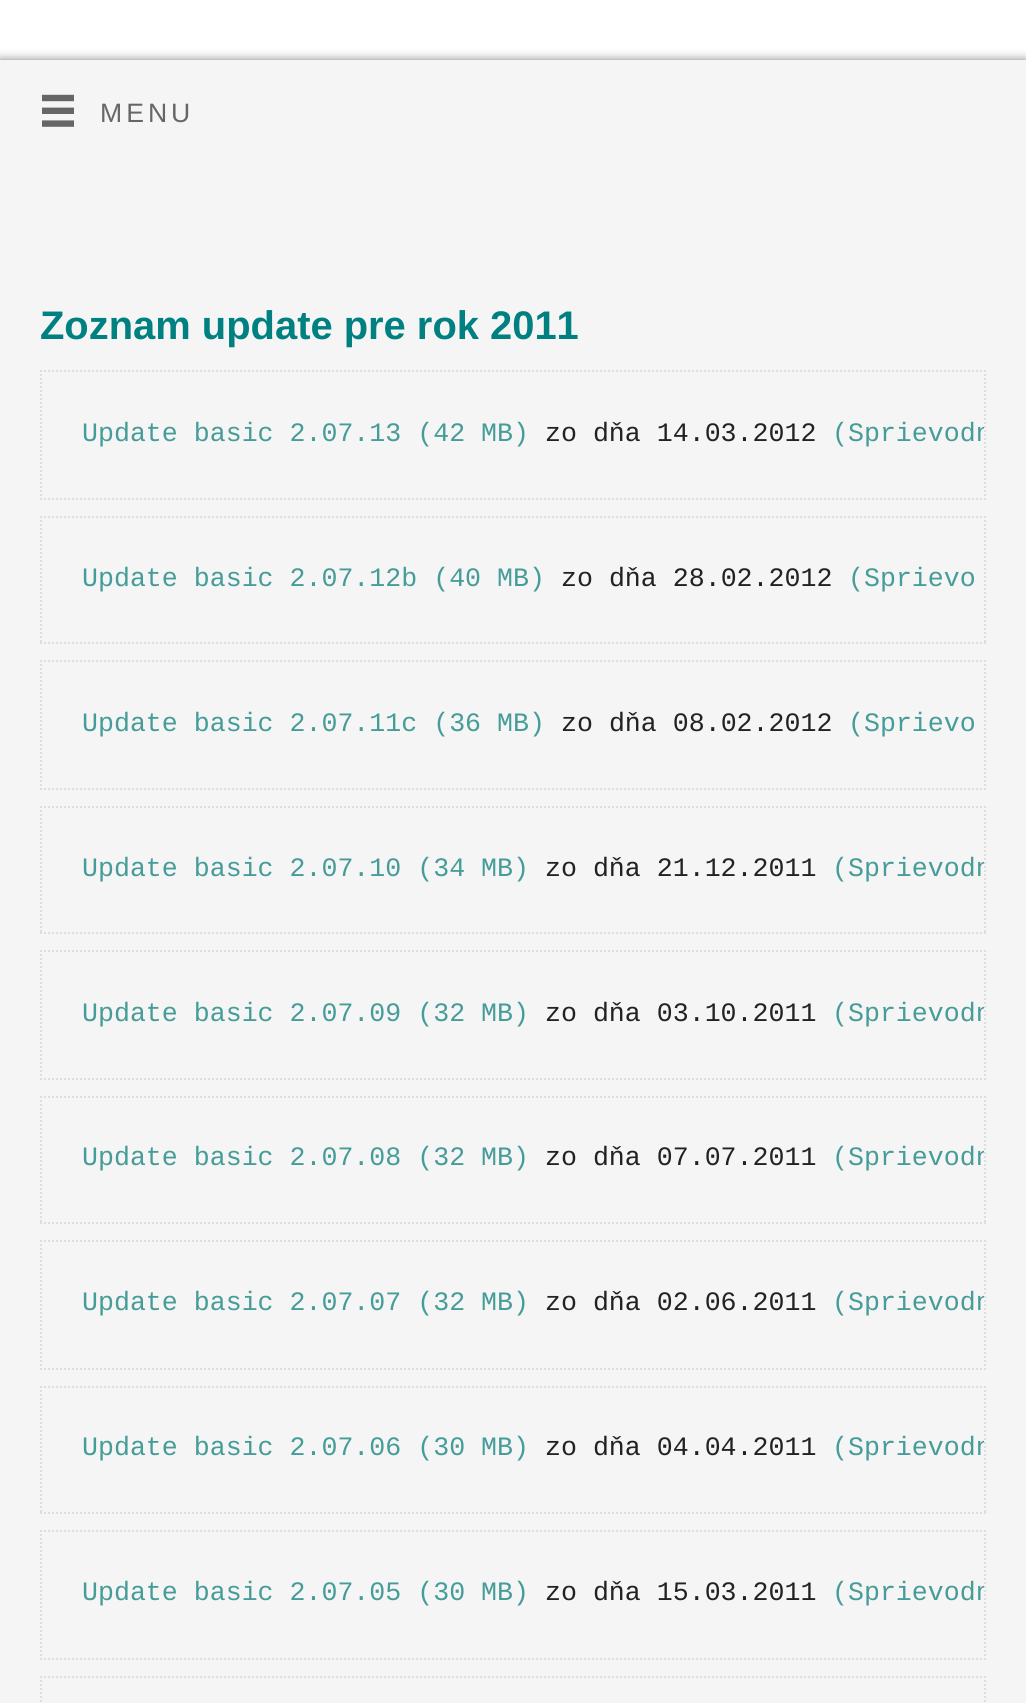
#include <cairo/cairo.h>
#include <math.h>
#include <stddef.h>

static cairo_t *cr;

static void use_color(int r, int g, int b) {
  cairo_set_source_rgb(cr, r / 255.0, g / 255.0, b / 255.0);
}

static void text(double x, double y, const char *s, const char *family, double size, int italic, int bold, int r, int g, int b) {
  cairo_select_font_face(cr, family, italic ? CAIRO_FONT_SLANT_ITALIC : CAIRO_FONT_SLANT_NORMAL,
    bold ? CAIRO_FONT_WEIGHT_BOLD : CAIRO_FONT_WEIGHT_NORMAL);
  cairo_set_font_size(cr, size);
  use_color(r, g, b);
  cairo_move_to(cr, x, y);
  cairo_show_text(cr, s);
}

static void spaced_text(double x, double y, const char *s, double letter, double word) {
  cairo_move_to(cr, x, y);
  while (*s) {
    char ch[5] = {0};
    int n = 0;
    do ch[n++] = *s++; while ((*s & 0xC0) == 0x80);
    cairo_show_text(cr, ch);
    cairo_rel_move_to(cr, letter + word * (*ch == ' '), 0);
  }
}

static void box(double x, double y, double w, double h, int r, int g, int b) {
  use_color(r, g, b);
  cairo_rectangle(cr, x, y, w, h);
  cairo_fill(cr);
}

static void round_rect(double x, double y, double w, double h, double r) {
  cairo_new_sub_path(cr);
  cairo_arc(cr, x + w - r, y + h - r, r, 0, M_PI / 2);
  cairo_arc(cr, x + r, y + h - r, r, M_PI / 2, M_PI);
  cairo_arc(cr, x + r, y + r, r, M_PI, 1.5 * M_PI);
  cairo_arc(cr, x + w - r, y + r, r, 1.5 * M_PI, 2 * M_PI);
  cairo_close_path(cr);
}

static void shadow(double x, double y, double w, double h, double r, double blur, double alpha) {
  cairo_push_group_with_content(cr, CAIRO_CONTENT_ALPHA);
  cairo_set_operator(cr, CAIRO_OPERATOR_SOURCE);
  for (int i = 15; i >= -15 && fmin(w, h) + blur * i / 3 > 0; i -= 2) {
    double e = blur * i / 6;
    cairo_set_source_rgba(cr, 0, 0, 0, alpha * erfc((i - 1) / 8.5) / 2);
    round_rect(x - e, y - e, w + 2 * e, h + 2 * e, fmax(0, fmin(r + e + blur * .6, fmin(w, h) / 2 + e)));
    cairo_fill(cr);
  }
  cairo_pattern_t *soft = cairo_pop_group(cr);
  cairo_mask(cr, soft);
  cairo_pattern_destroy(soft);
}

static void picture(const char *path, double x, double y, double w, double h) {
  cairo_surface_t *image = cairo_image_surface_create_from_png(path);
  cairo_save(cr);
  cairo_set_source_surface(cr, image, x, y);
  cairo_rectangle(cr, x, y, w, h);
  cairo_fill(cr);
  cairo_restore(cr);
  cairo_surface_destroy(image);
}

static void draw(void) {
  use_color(255, 255, 255);
  cairo_paint(cr);
  use_color(0, 0, 0);
  shadow(0, 60, 1026, 100, 0, 5, 0.5);
  box(0, 60, 1026, 1643, 245, 245, 245);
  picture("img_01.png", 42, 94, 32, 33);
  cairo_new_path(cr);
  cairo_move_to(cr, 40, 371);
  cairo_line_to(cr, 986, 371);
  use_color(221, 221, 221);
  cairo_set_dash(cr, (double[]){2, 2}, 2, 0);
  cairo_stroke(cr);
  cairo_new_path(cr);
  cairo_move_to(cr, 985, 370);
  cairo_line_to(cr, 985, 500);
  cairo_stroke(cr);
  cairo_new_path(cr);
  cairo_move_to(cr, 40, 499);
  cairo_line_to(cr, 986, 499);
  cairo_stroke(cr);
  cairo_new_path(cr);
  cairo_move_to(cr, 41, 370);
  cairo_line_to(cr, 41, 500);
  cairo_stroke(cr);
  cairo_new_path(cr);
  cairo_move_to(cr, 40, 517);
  cairo_line_to(cr, 986, 517);
  cairo_stroke(cr);
  cairo_new_path(cr);
  cairo_move_to(cr, 985, 516);
  cairo_line_to(cr, 985, 644);
  cairo_stroke(cr);
  cairo_new_path(cr);
  cairo_move_to(cr, 40, 643);
  cairo_line_to(cr, 986, 643);
  cairo_stroke(cr);
  cairo_new_path(cr);
  cairo_move_to(cr, 41, 516);
  cairo_line_to(cr, 41, 644);
  cairo_stroke(cr);
  cairo_new_path(cr);
  cairo_move_to(cr, 40, 661);
  cairo_line_to(cr, 986, 661);
  cairo_stroke(cr);
  cairo_new_path(cr);
  cairo_move_to(cr, 985, 660);
  cairo_line_to(cr, 985, 790);
  cairo_stroke(cr);
  cairo_new_path(cr);
  cairo_move_to(cr, 40, 789);
  cairo_line_to(cr, 986, 789);
  cairo_stroke(cr);
  cairo_new_path(cr);
  cairo_move_to(cr, 41, 660);
  cairo_line_to(cr, 41, 790);
  cairo_stroke(cr);
  cairo_new_path(cr);
  cairo_move_to(cr, 40, 807);
  cairo_line_to(cr, 986, 807);
  cairo_stroke(cr);
  cairo_new_path(cr);
  cairo_move_to(cr, 985, 806);
  cairo_line_to(cr, 985, 934);
  cairo_stroke(cr);
  cairo_new_path(cr);
  cairo_move_to(cr, 40, 933);
  cairo_line_to(cr, 986, 933);
  cairo_stroke(cr);
  cairo_new_path(cr);
  cairo_move_to(cr, 41, 806);
  cairo_line_to(cr, 41, 934);
  cairo_stroke(cr);
  cairo_new_path(cr);
  cairo_move_to(cr, 40, 951);
  cairo_line_to(cr, 986, 951);
  cairo_stroke(cr);
  cairo_new_path(cr);
  cairo_move_to(cr, 985, 950);
  cairo_line_to(cr, 985, 1080);
  cairo_stroke(cr);
  cairo_new_path(cr);
  cairo_move_to(cr, 40, 1079);
  cairo_line_to(cr, 986, 1079);
  cairo_stroke(cr);
  cairo_new_path(cr);
  cairo_move_to(cr, 41, 950);
  cairo_line_to(cr, 41, 1080);
  cairo_stroke(cr);
  cairo_new_path(cr);
  cairo_move_to(cr, 40, 1097);
  cairo_line_to(cr, 986, 1097);
  cairo_stroke(cr);
  cairo_new_path(cr);
  cairo_move_to(cr, 985, 1096);
  cairo_line_to(cr, 985, 1224);
  cairo_stroke(cr);
  cairo_new_path(cr);
  cairo_move_to(cr, 40, 1223);
  cairo_line_to(cr, 986, 1223);
  cairo_stroke(cr);
  cairo_new_path(cr);
  cairo_move_to(cr, 41, 1096);
  cairo_line_to(cr, 41, 1224);
  cairo_stroke(cr);
  cairo_new_path(cr);
  cairo_move_to(cr, 40, 1241);
  cairo_line_to(cr, 986, 1241);
  cairo_stroke(cr);
  cairo_new_path(cr);
  cairo_move_to(cr, 985, 1240);
  cairo_line_to(cr, 985, 1370);
  cairo_stroke(cr);
  cairo_new_path(cr);
  cairo_move_to(cr, 40, 1369);
  cairo_line_to(cr, 986, 1369);
  cairo_stroke(cr);
  cairo_new_path(cr);
  cairo_move_to(cr, 41, 1240);
  cairo_line_to(cr, 41, 1370);
  cairo_stroke(cr);
  cairo_new_path(cr);
  cairo_move_to(cr, 40, 1387);
  cairo_line_to(cr, 986, 1387);
  cairo_stroke(cr);
  cairo_new_path(cr);
  cairo_move_to(cr, 985, 1386);
  cairo_line_to(cr, 985, 1514);
  cairo_stroke(cr);
  cairo_new_path(cr);
  cairo_move_to(cr, 40, 1513);
  cairo_line_to(cr, 986, 1513);
  cairo_stroke(cr);
  cairo_new_path(cr);
  cairo_move_to(cr, 41, 1386);
  cairo_line_to(cr, 41, 1514);
  cairo_stroke(cr);
  cairo_new_path(cr);
  cairo_move_to(cr, 40, 1531);
  cairo_line_to(cr, 986, 1531);
  cairo_stroke(cr);
  cairo_new_path(cr);
  cairo_move_to(cr, 985, 1530);
  cairo_line_to(cr, 985, 1660);
  cairo_stroke(cr);
  cairo_new_path(cr);
  cairo_move_to(cr, 40, 1659);
  cairo_line_to(cr, 986, 1659);
  cairo_stroke(cr);
  cairo_new_path(cr);
  cairo_move_to(cr, 41, 1530);
  cairo_line_to(cr, 41, 1660);
  cairo_stroke(cr);
  cairo_new_path(cr);
  cairo_move_to(cr, 40, 1677);
  cairo_line_to(cr, 986, 1677);
  cairo_stroke(cr);
  cairo_new_path(cr);
  cairo_move_to(cr, 985, 1676);
  cairo_line_to(cr, 985, 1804);
  cairo_stroke(cr);
  cairo_new_path(cr);
  cairo_move_to(cr, 41, 1676);
  cairo_line_to(cr, 41, 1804);
  cairo_stroke(cr);
  cairo_select_font_face(cr, "Liberation Sans", CAIRO_FONT_SLANT_NORMAL, CAIRO_FONT_WEIGHT_NORMAL);
  cairo_set_font_size(cr, 26.6);
  use_color(102, 102, 102);
  spaced_text(100, 122, "MENU", 4, 0);
  text(40, 339, "Zoznam update pre rok 2011", "Liberation Sans", 39.9, 0, 1, 0, 128, 128);
  text(82, 441, "Update basic 2.07.13 (42 MB)", "Liberation Mono", 26.6, 0, 0, 69, 156, 152);
  text(545, 441, "zo dňa 14.03.2012", "Liberation Mono", 26.6, 0, 0, 34, 34, 34);
  cairo_save(cr);
  cairo_rectangle(cr, 42, 372, 942, 126);
  cairo_clip(cr);
  text(832, 441, "(Sprievodn", "Liberation Mono", 26.6, 0, 0, 69, 156, 152);
  cairo_restore(cr);
  text(82, 586, "Update basic 2.07.12b (40 MB)", "Liberation Mono", 26.6, 0, 0, 69, 156, 152);
  text(561, 586, "zo dňa 28.02.2012", "Liberation Mono", 26.6, 0, 0, 34, 34, 34);
  text(848, 586, "(Sprievo", "Liberation Mono", 26.6, 0, 0, 69, 156, 152);
  text(82, 731, "Update basic 2.07.11c (36 MB)", "Liberation Mono", 26.6, 0, 0, 69, 156, 152);
  text(561, 731, "zo dňa 08.02.2012", "Liberation Mono", 26.6, 0, 0, 34, 34, 34);
  text(848, 731, "(Sprievo", "Liberation Mono", 26.6, 0, 0, 69, 156, 152);
  text(82, 876, "Update basic 2.07.10 (34 MB)", "Liberation Mono", 26.6, 0, 0, 69, 156, 152);
  text(545, 876, "zo dňa 21.12.2011", "Liberation Mono", 26.6, 0, 0, 34, 34, 34);
  cairo_save(cr);
  cairo_rectangle(cr, 42, 808, 942, 124);
  cairo_clip(cr);
  text(832, 876, "(Sprievodn", "Liberation Mono", 26.6, 0, 0, 69, 156, 152);
  cairo_restore(cr);
  text(82, 1021, "Update basic 2.07.09 (32 MB)", "Liberation Mono", 26.6, 0, 0, 69, 156, 152);
  text(545, 1021, "zo dňa 03.10.2011", "Liberation Mono", 26.6, 0, 0, 34, 34, 34);
  cairo_save(cr);
  cairo_rectangle(cr, 42, 952, 942, 126);
  cairo_clip(cr);
  text(832, 1021, "(Sprievodn", "Liberation Mono", 26.6, 0, 0, 69, 156, 152);
  cairo_restore(cr);
  text(82, 1165, "Update basic 2.07.08 (32 MB)", "Liberation Mono", 26.6, 0, 0, 69, 156, 152);
  text(545, 1165, "zo dňa 07.07.2011", "Liberation Mono", 26.6, 0, 0, 34, 34, 34);
  cairo_save(cr);
  cairo_rectangle(cr, 42, 1098, 942, 124);
  cairo_clip(cr);
  text(832, 1165, "(Sprievodn", "Liberation Mono", 26.6, 0, 0, 69, 156, 152);
  cairo_restore(cr);
  text(82, 1310, "Update basic 2.07.07 (32 MB)", "Liberation Mono", 26.6, 0, 0, 69, 156, 152);
  text(545, 1310, "zo dňa 02.06.2011", "Liberation Mono", 26.6, 0, 0, 34, 34, 34);
  cairo_save(cr);
  cairo_rectangle(cr, 42, 1242, 942, 126);
  cairo_clip(cr);
  text(832, 1310, "(Sprievodn", "Liberation Mono", 26.6, 0, 0, 69, 156, 152);
  cairo_restore(cr);
  text(82, 1455, "Update basic 2.07.06 (30 MB)", "Liberation Mono", 26.6, 0, 0, 69, 156, 152);
  text(545, 1455, "zo dňa 04.04.2011", "Liberation Mono", 26.6, 0, 0, 34, 34, 34);
  cairo_save(cr);
  cairo_rectangle(cr, 42, 1388, 942, 124);
  cairo_clip(cr);
  text(832, 1455, "(Sprievodn", "Liberation Mono", 26.6, 0, 0, 69, 156, 152);
  cairo_restore(cr);
  text(82, 1600, "Update basic 2.07.05 (30 MB)", "Liberation Mono", 26.6, 0, 0, 69, 156, 152);
  text(545, 1600, "zo dňa 15.03.2011", "Liberation Mono", 26.6, 0, 0, 34, 34, 34);
  cairo_save(cr);
  cairo_rectangle(cr, 42, 1532, 942, 126);
  cairo_clip(cr);
  text(832, 1600, "(Sprievodn", "Liberation Mono", 26.6, 0, 0, 69, 156, 152);
  cairo_restore(cr);
}

int main(void) {
  cairo_surface_t *surface = cairo_image_surface_create(CAIRO_FORMAT_RGB24, 1026, 1703);
  cr = cairo_create(surface);
  cairo_font_options_t *options = cairo_font_options_create();
  cairo_font_options_set_hint_metrics(options, CAIRO_HINT_METRICS_OFF);
  cairo_font_options_set_hint_style(options, CAIRO_HINT_STYLE_NONE);
  cairo_set_font_options(cr, options);
  cairo_set_miter_limit(cr, 4);
  draw();
  cairo_surface_write_to_png(surface, "out.png");
  cairo_font_options_destroy(options);
  cairo_destroy(cr);
  cairo_surface_destroy(surface);
  return 0;
}
